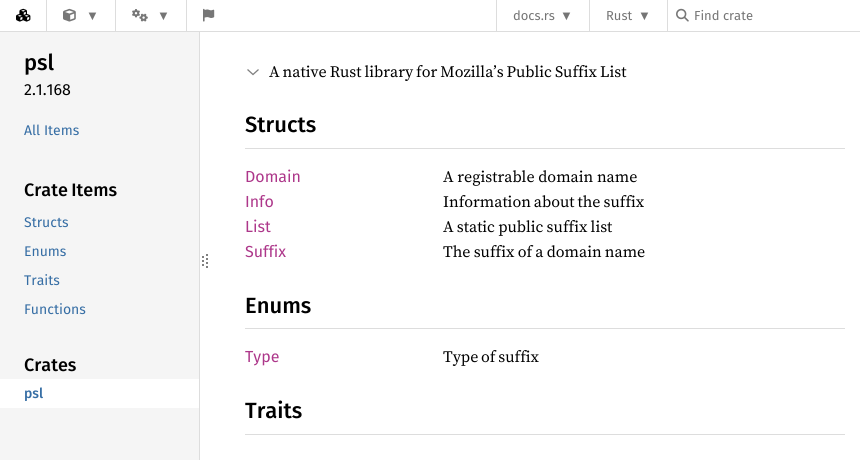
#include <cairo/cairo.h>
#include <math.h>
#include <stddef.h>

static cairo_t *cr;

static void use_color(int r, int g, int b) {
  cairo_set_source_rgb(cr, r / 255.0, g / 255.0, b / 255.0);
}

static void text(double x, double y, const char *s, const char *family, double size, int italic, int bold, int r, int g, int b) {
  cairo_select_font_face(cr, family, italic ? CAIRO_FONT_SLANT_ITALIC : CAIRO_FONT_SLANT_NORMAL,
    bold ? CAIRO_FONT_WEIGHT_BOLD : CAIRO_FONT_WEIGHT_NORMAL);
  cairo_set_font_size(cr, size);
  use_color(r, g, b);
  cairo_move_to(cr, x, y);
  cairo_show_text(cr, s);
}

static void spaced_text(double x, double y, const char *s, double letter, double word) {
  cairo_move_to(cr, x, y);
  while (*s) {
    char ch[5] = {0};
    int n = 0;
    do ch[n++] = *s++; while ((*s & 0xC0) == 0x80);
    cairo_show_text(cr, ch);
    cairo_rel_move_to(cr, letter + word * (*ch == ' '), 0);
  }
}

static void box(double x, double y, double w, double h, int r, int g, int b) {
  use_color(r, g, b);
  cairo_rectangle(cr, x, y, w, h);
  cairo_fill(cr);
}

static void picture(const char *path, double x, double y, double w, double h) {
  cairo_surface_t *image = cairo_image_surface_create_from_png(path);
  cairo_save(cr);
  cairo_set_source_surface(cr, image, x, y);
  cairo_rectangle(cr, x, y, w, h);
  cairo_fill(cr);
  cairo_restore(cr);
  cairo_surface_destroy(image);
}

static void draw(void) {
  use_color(255, 255, 255);
  cairo_paint(cr);
  box(0, 31, 860, 1, 221, 221, 221);
  picture("img_01.png", 16, 8, 15, 14);
  box(46, 0, 1, 31, 221, 221, 221);
  picture("img_02.png", 63, 8, 13, 14);
  box(115, 0, 1, 31, 221, 221, 221);
  picture("img_03.png", 132, 9, 16, 13);
  box(186, 0, 1, 31, 221, 221, 221);
  picture("img_04.png", 203, 8, 12, 14);
  box(496, 0, 1, 31, 221, 221, 221);
  box(589, 0, 1, 31, 221, 221, 221);
  box(667, 0, 1, 31, 221, 221, 221);
  picture("img_05.png", 676, 8, 13, 14);
  box(0, 32, 199, 428, 245, 245, 245);
  box(199, 32, 1, 428, 221, 221, 221);
  box(0, 379, 199, 29, 255, 255, 255);
  cairo_new_path(cr);
  cairo_move_to(cr, 203, 256);
  cairo_line_to(cr, 203, 258);
  cairo_move_to(cr, 203, 260);
  cairo_line_to(cr, 203, 262);
  cairo_move_to(cr, 203, 264);
  cairo_line_to(cr, 203, 266);
  use_color(128, 128, 128);
  cairo_stroke(cr);
  cairo_new_path(cr);
  cairo_move_to(cr, 207, 254);
  cairo_line_to(cr, 207, 270);
  cairo_set_dash(cr, (double[]){2, 2}, 2, 0);
  cairo_stroke(cr);
  cairo_new_path(cr);
  cairo_move_to(cr, 247.5, 69.5);
  cairo_line_to(cr, 253, 74.5);
  cairo_line_to(cr, 258.5, 69.5);
  cairo_set_line_width(cr, 1.3);
  cairo_set_dash(cr, NULL, 0, 0);
  cairo_stroke(cr);
  box(245, 148, 600, 1, 221, 221, 221);
  box(245, 328, 600, 1, 221, 221, 221);
  box(245, 434, 600, 1, 221, 221, 221);
  text(86, 20, "▼", "Liberation Sans", 13, 0, 0, 117, 117, 117);
  text(157, 20, "▼", "Liberation Sans", 13, 0, 0, 117, 117, 117);
  text(513, 20, "docs.rs", "Fira Sans", 13, 0, 0, 117, 117, 117);
  text(560, 20, "▼", "Liberation Sans", 13, 0, 0, 117, 117, 117);
  text(606, 20, "Rust", "Fira Sans", 13, 0, 0, 117, 117, 117);
  text(638, 20, "▼", "Liberation Sans", 13, 0, 0, 117, 117, 117);
  text(694, 20, "Find crate", "Fira Sans", 13, 0, 0, 117, 117, 117);
  text(24, 70, "psl", "Fira Sans Medium", 22, 0, 0, 0, 0, 0);
  text(24, 95, "2.1.168", "Fira Sans", 16, 0, 0, 0, 0, 0);
  text(24, 135, "All Items", "Fira Sans", 14, 0, 0, 53, 109, 164);
  cairo_select_font_face(cr, "Fira Sans Medium", CAIRO_FONT_SLANT_NORMAL, CAIRO_FONT_WEIGHT_NORMAL);
  cairo_set_font_size(cr, 18);
  use_color(0, 0, 0);
  spaced_text(24, 196, "Crate Items", 0, -1);
  text(24, 227, "Structs", "Fira Sans", 14, 0, 0, 53, 109, 164);
  text(24, 256, "Enums", "Fira Sans", 14, 0, 0, 53, 109, 164);
  text(24, 285, "Traits", "Fira Sans", 14, 0, 0, 53, 109, 164);
  text(24, 314, "Functions", "Fira Sans", 14, 0, 0, 53, 109, 164);
  text(24, 371, "Crates", "Fira Sans Medium", 18, 0, 0, 0, 0, 0);
  text(24, 398, "psl", "Fira Sans Medium", 14, 0, 0, 53, 109, 164);
  cairo_select_font_face(cr, "Source Serif 4", CAIRO_FONT_SLANT_NORMAL, CAIRO_FONT_WEIGHT_NORMAL);
  cairo_set_font_size(cr, 16);
  use_color(0, 0, 0);
  spaced_text(269, 77, "A native Rust library for Mozilla’s Public Suffix List", 0, -0.75);
  text(245, 132, "Structs", "Fira Sans Medium", 22, 0, 0, 0, 0, 0);
  text(245, 182, "Domain", "Fira Sans", 16, 0, 0, 173, 55, 138);
  text(443, 182, "A registrable domain name", "Source Serif 4", 16, 0, 0, 0, 0, 0);
  text(245, 207, "Info", "Fira Sans", 16, 0, 0, 173, 55, 138);
  cairo_select_font_face(cr, "Source Serif 4", CAIRO_FONT_SLANT_NORMAL, CAIRO_FONT_WEIGHT_NORMAL);
  use_color(0, 0, 0);
  spaced_text(443, 207, "Information about the suffix", 0, -0.75);
  text(245, 232, "List", "Fira Sans", 16, 0, 0, 173, 55, 138);
  cairo_select_font_face(cr, "Source Serif 4", CAIRO_FONT_SLANT_NORMAL, CAIRO_FONT_WEIGHT_NORMAL);
  use_color(0, 0, 0);
  spaced_text(443, 232, "A static public suffix list", 0, -0.5);
  text(245, 257, "Suffix", "Fira Sans", 16, 0, 0, 173, 55, 138);
  cairo_select_font_face(cr, "Source Serif 4", CAIRO_FONT_SLANT_NORMAL, CAIRO_FONT_WEIGHT_NORMAL);
  use_color(0, 0, 0);
  spaced_text(443, 257, "The suffix of a domain name", 0, -0.5);
  text(245, 313, "Enums", "Fira Sans Medium", 22, 0, 0, 0, 0, 0);
  text(245, 362, "Type", "Fira Sans", 16, 0, 0, 173, 55, 138);
  cairo_select_font_face(cr, "Source Serif 4", CAIRO_FONT_SLANT_NORMAL, CAIRO_FONT_WEIGHT_NORMAL);
  use_color(0, 0, 0);
  spaced_text(443, 362, "Type of suffix", 0, -1);
  text(245, 418, "Traits", "Fira Sans Medium", 22, 0, 0, 0, 0, 0);
}

int main(void) {
  cairo_surface_t *surface = cairo_image_surface_create(CAIRO_FORMAT_RGB24, 860, 460);
  cr = cairo_create(surface);
  cairo_font_options_t *options = cairo_font_options_create();
  cairo_font_options_set_hint_metrics(options, CAIRO_HINT_METRICS_OFF);
  cairo_font_options_set_hint_style(options, CAIRO_HINT_STYLE_NONE);
  cairo_set_font_options(cr, options);
  cairo_set_miter_limit(cr, 4);
  draw();
  cairo_surface_write_to_png(surface, "out.png");
  cairo_font_options_destroy(options);
  cairo_destroy(cr);
  cairo_surface_destroy(surface);
  return 0;
}
